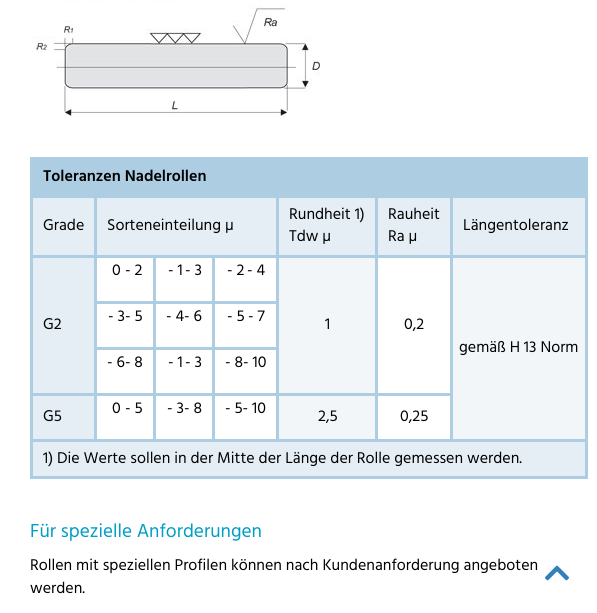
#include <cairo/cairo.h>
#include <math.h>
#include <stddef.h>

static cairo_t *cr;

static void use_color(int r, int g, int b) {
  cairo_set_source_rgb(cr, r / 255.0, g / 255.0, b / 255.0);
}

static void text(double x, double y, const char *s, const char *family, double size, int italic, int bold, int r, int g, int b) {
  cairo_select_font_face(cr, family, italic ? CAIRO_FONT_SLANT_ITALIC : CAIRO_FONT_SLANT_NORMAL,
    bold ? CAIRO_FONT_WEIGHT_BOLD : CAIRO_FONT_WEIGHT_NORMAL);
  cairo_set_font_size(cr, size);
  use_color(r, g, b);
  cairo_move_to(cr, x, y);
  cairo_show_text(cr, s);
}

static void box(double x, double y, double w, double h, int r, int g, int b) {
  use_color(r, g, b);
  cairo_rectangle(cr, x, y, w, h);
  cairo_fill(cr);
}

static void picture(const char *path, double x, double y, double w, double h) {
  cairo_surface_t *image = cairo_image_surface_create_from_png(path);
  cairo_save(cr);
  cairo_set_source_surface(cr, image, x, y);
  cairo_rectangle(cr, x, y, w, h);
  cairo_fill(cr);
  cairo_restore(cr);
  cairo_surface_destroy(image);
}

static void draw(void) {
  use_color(255, 255, 255);
  cairo_paint(cr);
  picture("img_01.png", 32, 0, 288, 116);
  box(30, 157, 558, 322, 173, 205, 227);
  box(33, 198, 61, 57, 230, 238, 245);
  box(97, 198, 179, 57, 230, 238, 245);
  box(279, 198, 96, 57, 230, 238, 245);
  box(378, 198, 72, 57, 230, 238, 245);
  box(453, 198, 132, 57, 230, 238, 245);
  box(97, 258, 56, 43, 255, 255, 255);
  box(156, 258, 56, 43, 255, 255, 255);
  box(215, 258, 61, 43, 255, 255, 255);
  box(33, 258, 61, 135, 230, 238, 245);
  box(279, 258, 96, 135, 243, 246, 249);
  box(378, 258, 72, 135, 255, 255, 255);
  box(453, 258, 132, 181, 243, 246, 249);
  box(97, 304, 56, 43, 255, 255, 255);
  box(156, 304, 56, 43, 255, 255, 255);
  box(215, 304, 61, 43, 255, 255, 255);
  box(97, 350, 56, 43, 255, 255, 255);
  box(156, 350, 56, 43, 255, 255, 255);
  box(215, 350, 61, 43, 255, 255, 255);
  box(97, 396, 56, 43, 255, 255, 255);
  box(156, 396, 56, 43, 255, 255, 255);
  box(215, 396, 61, 43, 255, 255, 255);
  box(33, 396, 61, 43, 230, 238, 245);
  box(279, 396, 96, 43, 243, 246, 249);
  box(378, 396, 72, 43, 255, 255, 255);
  box(33, 442, 552, 34, 230, 238, 245);
  picture("img_02.png", 545, 565, 24, 16);
  text(43, 181, "Toleranzen Nadelrollen", "Hind SemiBold", 16, 0, 0, 0, 0, 0);
  text(43, 230, "Grade", "Hind", 16, 0, 0, 0, 0, 0);
  text(107, 230, "Sorteneinteilung µ", "Hind", 16, 0, 0, 0, 0, 0);
  text(289, 219, "Rundheit 1)", "Hind", 16, 0, 0, 0, 0, 0);
  text(289, 241, "Tdw µ", "Hind", 16, 0, 0, 0, 0, 0);
  text(388, 219, "Rauheit", "Hind", 16, 0, 0, 0, 0, 0);
  text(388, 241, "Ra µ", "Hind", 16, 0, 0, 0, 0, 0);
  text(463, 230, "Längentoleranz", "Hind", 16, 0, 0, 0, 0, 0);
  text(112, 275, "0", "Hind", 16, 0, 0, 0, 0, 0);
  text(125, 275, "- 2", "Hind", 16, 0, 0, 0, 0, 0);
  text(168, 275, "- 1", "Hind", 16, 0, 0, 0, 0, 0);
  text(185, 275, "- 3", "Hind", 16, 0, 0, 0, 0, 0);
  text(227, 275, "- 2", "Hind", 16, 0, 0, 0, 0, 0);
  text(247, 275, "- 4", "Hind", 16, 0, 0, 0, 0, 0);
  text(43, 329, "G2", "Hind", 16, 0, 0, 0, 0, 0);
  text(325, 329, "1", "Hind", 16, 0, 0, 0, 0, 0);
  text(404, 329, "0,2", "Hind", 16, 0, 0, 0, 0, 0);
  text(459, 352, "gemäß H 13 Norm", "Hind", 16, 0, 0, 0, 0, 0);
  text(108, 321, "- 3", "Hind", 16, 0, 0, 0, 0, 0);
  text(125, 321, "- 5", "Hind", 16, 0, 0, 0, 0, 0);
  text(166, 321, "- 4- 6", "Hind", 16, 0, 0, 0, 0, 0);
  text(227, 321, "- 5", "Hind", 16, 0, 0, 0, 0, 0);
  text(248, 321, "- 7", "Hind", 16, 0, 0, 0, 0, 0);
  text(107, 367, "- 6- 8", "Hind", 16, 0, 0, 0, 0, 0);
  text(168, 367, "- 1", "Hind", 16, 0, 0, 0, 0, 0);
  text(185, 367, "- 3", "Hind", 16, 0, 0, 0, 0, 0);
  text(225, 367, "- 8- 10", "Hind", 16, 0, 0, 0, 0, 0);
  text(112, 413, "0", "Hind", 16, 0, 0, 0, 0, 0);
  text(125, 413, "- 5", "Hind", 16, 0, 0, 0, 0, 0);
  text(167, 413, "- 3", "Hind", 16, 0, 0, 0, 0, 0);
  text(184, 413, "- 8", "Hind", 16, 0, 0, 0, 0, 0);
  text(225, 413, "- 5- 10", "Hind", 16, 0, 0, 0, 0, 0);
  text(43, 421, "G5", "Hind", 16, 0, 0, 0, 0, 0);
  text(318, 421, "2,5", "Hind", 16, 0, 0, 0, 0, 0);
  text(400, 421, "0,25", "Hind", 16, 0, 0, 0, 0, 0);
  text(43, 463, "1) Die Werte sollen in der Mitte der Länge der Rolle gemessen werden.", "Hind", 16, 0, 0, 0, 0, 0);
  text(30, 537, "Für spezielle Anforderungen", "Hind", 19.25, 0, 0, 0, 157, 197);
  text(30, 570, "Rollen mit speziellen Profilen können nach Kundenanforderung angeboten", "Hind", 16, 0, 0, 0, 0, 0);
  text(30, 593, "werden.", "Hind", 16, 0, 0, 0, 0, 0);
}

int main(void) {
  cairo_surface_t *surface = cairo_image_surface_create(CAIRO_FORMAT_RGB24, 597, 613);
  cr = cairo_create(surface);
  cairo_font_options_t *options = cairo_font_options_create();
  cairo_font_options_set_hint_metrics(options, CAIRO_HINT_METRICS_OFF);
  cairo_font_options_set_hint_style(options, CAIRO_HINT_STYLE_NONE);
  cairo_set_font_options(cr, options);
  cairo_set_miter_limit(cr, 4);
  draw();
  cairo_surface_write_to_png(surface, "out.png");
  cairo_font_options_destroy(options);
  cairo_destroy(cr);
  cairo_surface_destroy(surface);
  return 0;
}
